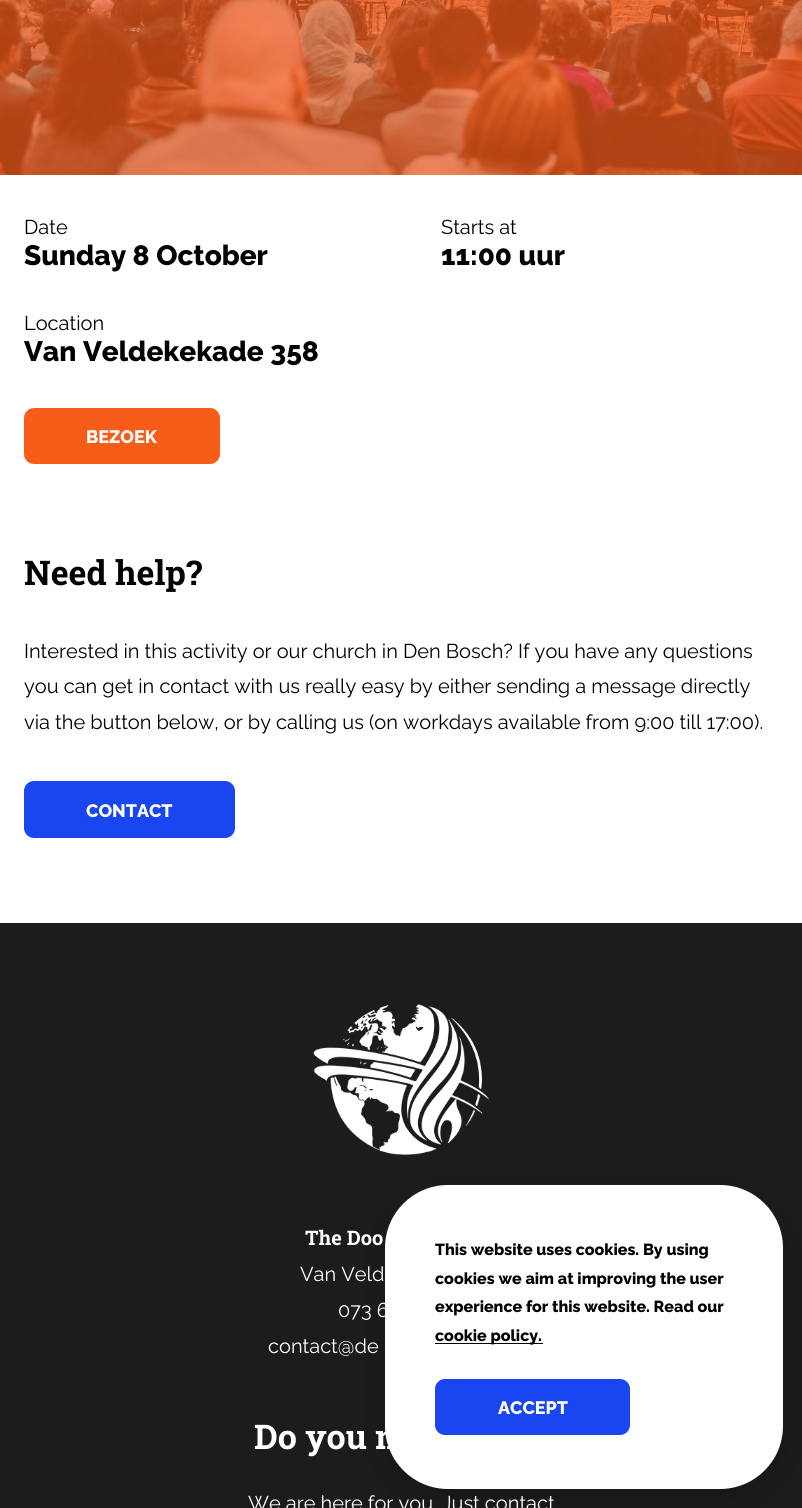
#include <cairo/cairo.h>
#include <math.h>
#include <stddef.h>

static cairo_t *cr;

static void use_color(int r, int g, int b) {
  cairo_set_source_rgb(cr, r / 255.0, g / 255.0, b / 255.0);
}

static void text(double x, double y, const char *s, const char *family, double size, int italic, int bold, int r, int g, int b) {
  cairo_select_font_face(cr, family, italic ? CAIRO_FONT_SLANT_ITALIC : CAIRO_FONT_SLANT_NORMAL,
    bold ? CAIRO_FONT_WEIGHT_BOLD : CAIRO_FONT_WEIGHT_NORMAL);
  cairo_set_font_size(cr, size);
  use_color(r, g, b);
  cairo_move_to(cr, x, y);
  cairo_show_text(cr, s);
}

static void box(double x, double y, double w, double h, int r, int g, int b) {
  use_color(r, g, b);
  cairo_rectangle(cr, x, y, w, h);
  cairo_fill(cr);
}

static void round_rect(double x, double y, double w, double h, double r) {
  cairo_new_sub_path(cr);
  cairo_arc(cr, x + w - r, y + h - r, r, 0, M_PI / 2);
  cairo_arc(cr, x + r, y + h - r, r, M_PI / 2, M_PI);
  cairo_arc(cr, x + r, y + r, r, M_PI, 1.5 * M_PI);
  cairo_arc(cr, x + w - r, y + r, r, 1.5 * M_PI, 2 * M_PI);
  cairo_close_path(cr);
}

static void shadow(double x, double y, double w, double h, double r, double blur, double alpha) {
  cairo_push_group_with_content(cr, CAIRO_CONTENT_ALPHA);
  cairo_set_operator(cr, CAIRO_OPERATOR_SOURCE);
  for (int i = 15; i >= -15 && fmin(w, h) + blur * i / 3 > 0; i -= 2) {
    double e = blur * i / 6;
    cairo_set_source_rgba(cr, 0, 0, 0, alpha * erfc((i - 1) / 8.5) / 2);
    round_rect(x - e, y - e, w + 2 * e, h + 2 * e, fmax(0, fmin(r + e + blur * .6, fmin(w, h) / 2 + e)));
    cairo_fill(cr);
  }
  cairo_pattern_t *soft = cairo_pop_group(cr);
  cairo_mask(cr, soft);
  cairo_pattern_destroy(soft);
}

static void picture(const char *path, double x, double y, double w, double h) {
  cairo_surface_t *image = cairo_image_surface_create_from_png(path);
  cairo_save(cr);
  cairo_set_source_surface(cr, image, x, y);
  cairo_rectangle(cr, x, y, w, h);
  cairo_fill(cr);
  cairo_restore(cr);
  cairo_surface_destroy(image);
}

static void draw(void) {
  cairo_pattern_t *gradient;
  use_color(255, 255, 255);
  cairo_paint(cr);
  picture("img_01.png", 0, 0, 802, 175);
  gradient = cairo_pattern_create_linear(-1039, 436, 461, 436);
  cairo_pattern_add_color_stop_rgba(gradient, 0, 0.102, 0.275, 0.941, 1);
  cairo_pattern_add_color_stop_rgba(gradient, 0.4, 0.102, 0.275, 0.941, 1);
  cairo_pattern_add_color_stop_rgba(gradient, 0.7, 0.969, 0.361, 0.094, 1);
  cairo_pattern_add_color_stop_rgba(gradient, 1, 0.969, 0.361, 0.094, 1);
  cairo_set_source(cr, gradient);
  cairo_pattern_destroy(gradient);
  round_rect(24, 408, 196, 56, 10);
  cairo_fill(cr);
  gradient = cairo_pattern_create_linear(-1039, 809, 461, 809);
  cairo_pattern_add_color_stop_rgba(gradient, 0, 0.969, 0.361, 0.094, 1);
  cairo_pattern_add_color_stop_rgba(gradient, 0.4, 0.969, 0.361, 0.094, 1);
  cairo_pattern_add_color_stop_rgba(gradient, 0.7, 0.102, 0.275, 0.941, 1);
  cairo_pattern_add_color_stop_rgba(gradient, 1, 0.102, 0.275, 0.941, 1);
  cairo_set_source(cr, gradient);
  cairo_pattern_destroy(gradient);
  round_rect(24, 781, 211, 57, 10);
  cairo_fill(cr);
  box(0, 923, 802, 585, 28, 28, 28);
  picture("img_02.png", 313, 1004, 176, 151);
  use_color(0, 0, 0);
  shadow(385, 1198, 398, 303, 63, 19, 0.2);
  use_color(255, 255, 255);
  round_rect(385, 1185, 398, 304, 63);
  cairo_fill(cr);
  box(435, 1343, 108, 1, 0, 0, 0);
  gradient = cairo_pattern_create_linear(-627, 1407, 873, 1407);
  cairo_pattern_add_color_stop_rgba(gradient, 0, 0.969, 0.361, 0.094, 1);
  cairo_pattern_add_color_stop_rgba(gradient, 0.4, 0.969, 0.361, 0.094, 1);
  cairo_pattern_add_color_stop_rgba(gradient, 0.7, 0.102, 0.275, 0.941, 1);
  cairo_pattern_add_color_stop_rgba(gradient, 1, 0.102, 0.275, 0.941, 1);
  cairo_set_source(cr, gradient);
  cairo_pattern_destroy(gradient);
  round_rect(435, 1379, 195, 56, 10);
  cairo_fill(cr);
  text(24, 234, "Date", "Raleway", 20, 0, 0, 0, 0, 0);
  text(24, 265, "Sunday 8 October", "Raleway ExtraBold", 28, 0, 0, 0, 0, 0);
  text(441, 234, "Starts at", "Raleway", 20, 0, 0, 0, 0, 0);
  text(441, 265, "11:00 uur", "Raleway ExtraBold", 28, 0, 0, 0, 0, 0);
  text(24, 330, "Location", "Raleway", 20, 0, 0, 0, 0, 0);
  text(24, 361, "Van Veldekekade 358", "Raleway ExtraBold", 28, 0, 0, 0, 0, 0);
  text(86, 443, "BEZOEK", "Raleway ExtraBold", 18, 0, 0, 255, 255, 255);
  text(24, 585, "Need help?", "Roboto Slab", 34, 0, 1, 0, 0, 0);
  text(24, 658, "Interested in this activity or our church in Den Bosch? If you have any questions", "Raleway", 20, 0, 0, 0, 0, 0);
  text(24, 693, "you can get in contact with us really easy by either sending a message directly", "Raleway", 20, 0, 0, 0, 0, 0);
  text(24, 729, "via the button below, or by calling us (on workdays available from 9:00 till 17:00).", "Raleway", 20, 0, 0, 0, 0, 0);
  text(86, 817, "CONTACT", "Raleway ExtraBold", 18, 0, 0, 255, 255, 255);
  text(305, 1245, "The Doo", "Roboto Slab", 20, 0, 1, 255, 255, 255);
  text(300, 1281, "Van Veld", "Raleway", 20, 0, 0, 255, 255, 255);
  text(338, 1317, "073 6", "Raleway", 20, 0, 0, 255, 255, 255);
  text(268, 1353, "contact@de", "Raleway", 20, 0, 0, 255, 255, 255);
  text(254, 1449, "Do you n", "Roboto Slab", 34, 0, 1, 255, 255, 255);
  text(248, 1510, "We are here for you. Just contact", "Raleway", 20, 0, 0, 255, 255, 255);
  text(435, 1255, "This website uses cookies. By using", "Raleway ExtraBold", 16, 0, 0, 0, 0, 0);
  text(435, 1284, "cookies we aim at improving the user", "Raleway ExtraBold", 16, 0, 0, 0, 0, 0);
  text(435, 1312, "experience for this website. Read our", "Raleway ExtraBold", 16, 0, 0, 0, 0, 0);
  text(435, 1341, "cookie policy.", "Raleway ExtraBold", 16, 0, 0, 0, 0, 0);
  text(498, 1414, "ACCEPT", "Raleway ExtraBold", 18, 0, 0, 255, 255, 255);
}

int main(void) {
  cairo_surface_t *surface = cairo_image_surface_create(CAIRO_FORMAT_RGB24, 802, 1508);
  cr = cairo_create(surface);
  cairo_font_options_t *options = cairo_font_options_create();
  cairo_font_options_set_hint_metrics(options, CAIRO_HINT_METRICS_OFF);
  cairo_font_options_set_hint_style(options, CAIRO_HINT_STYLE_NONE);
  cairo_set_font_options(cr, options);
  cairo_set_miter_limit(cr, 4);
  draw();
  cairo_surface_write_to_png(surface, "out.png");
  cairo_font_options_destroy(options);
  cairo_destroy(cr);
  cairo_surface_destroy(surface);
  return 0;
}
